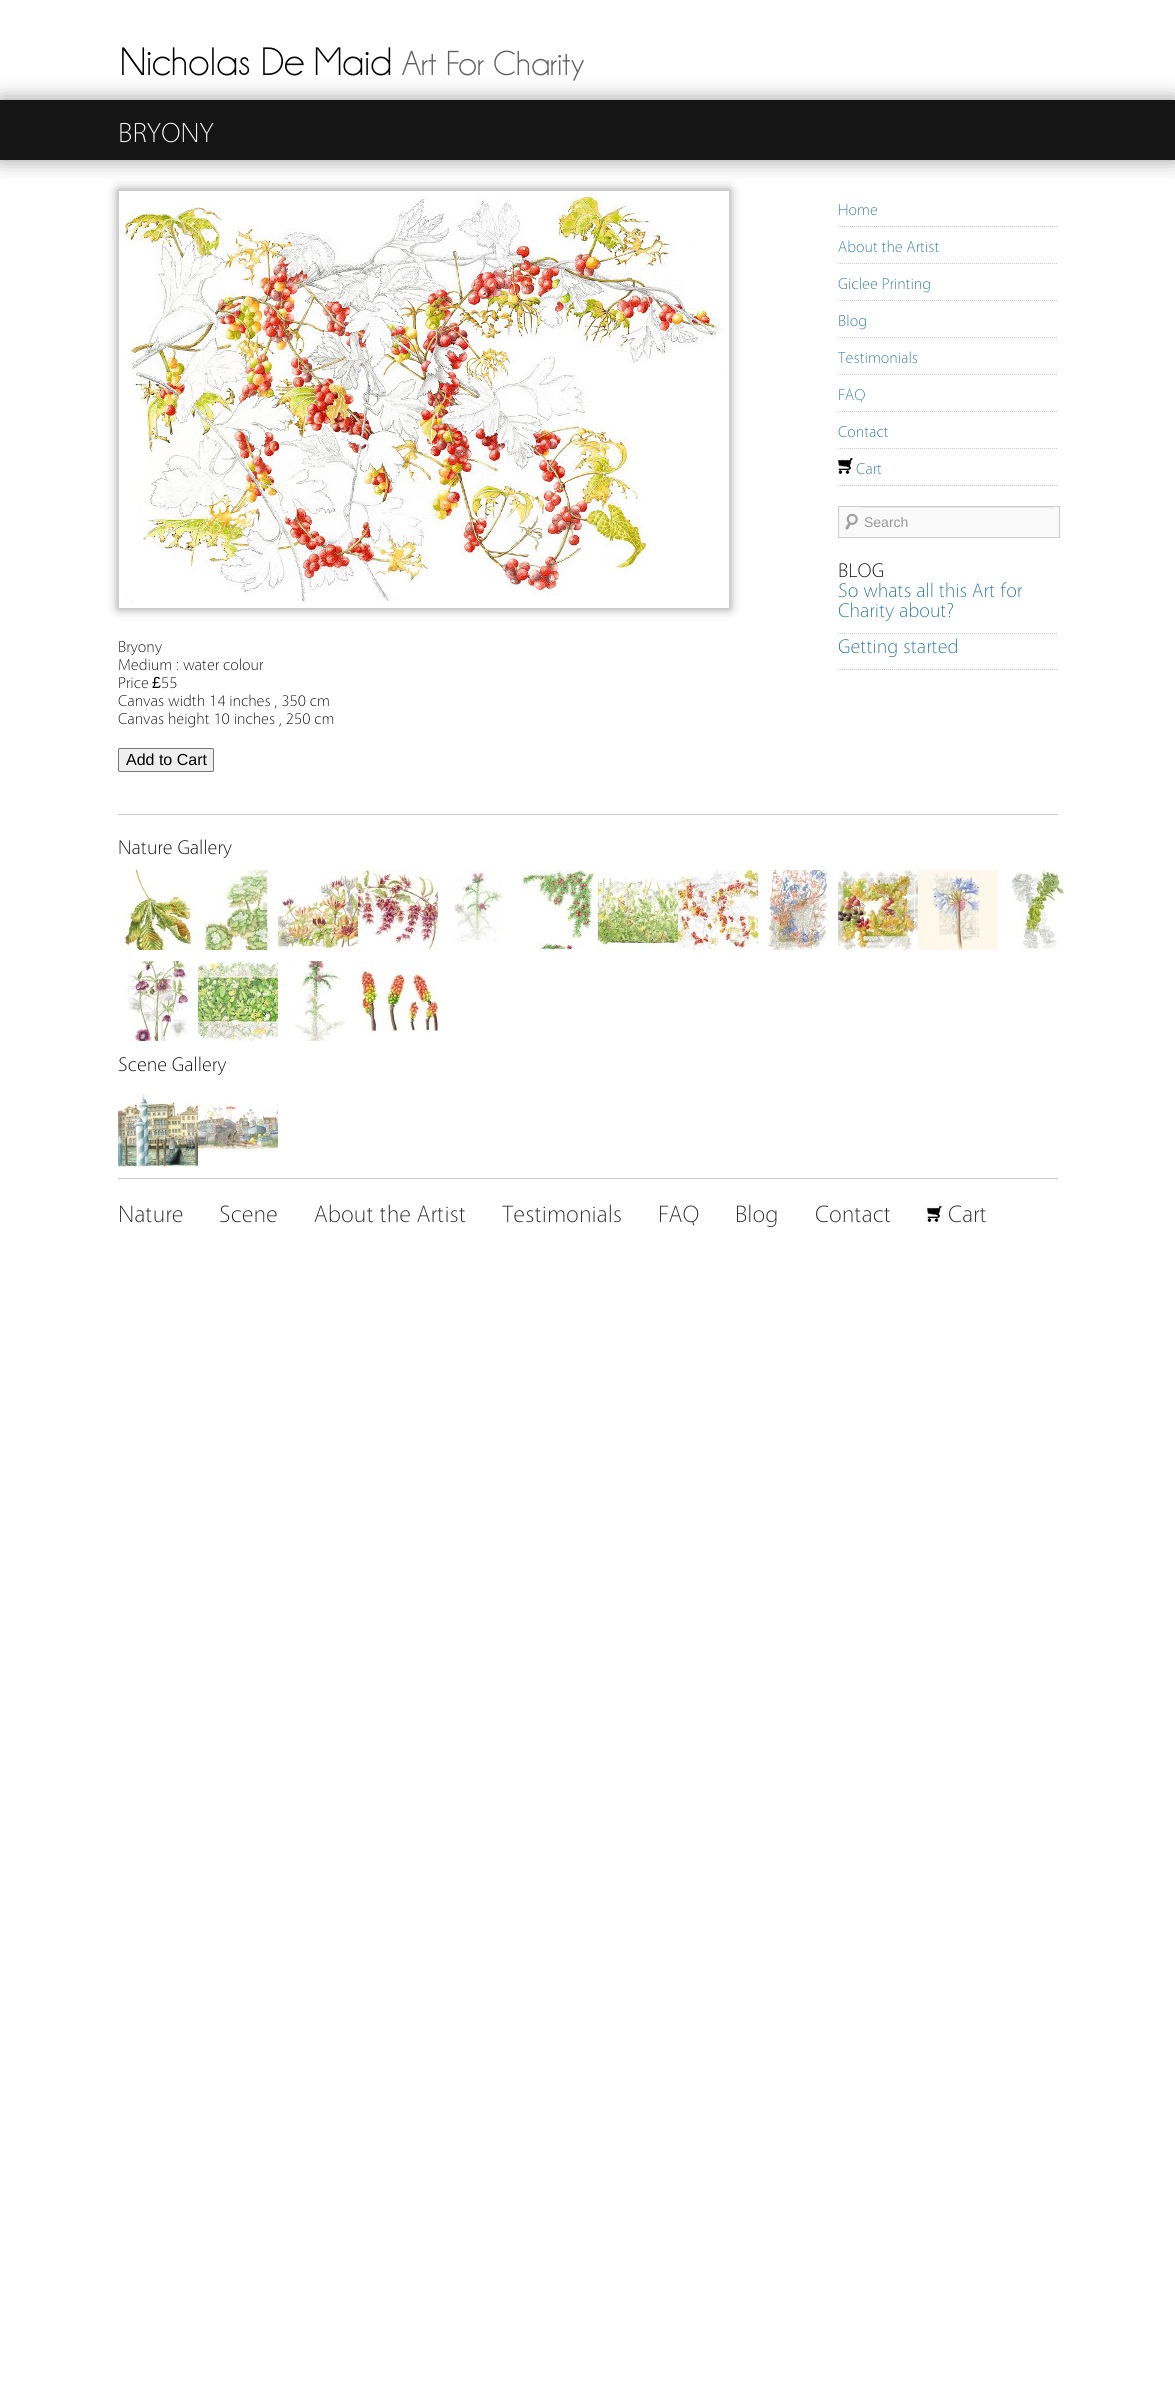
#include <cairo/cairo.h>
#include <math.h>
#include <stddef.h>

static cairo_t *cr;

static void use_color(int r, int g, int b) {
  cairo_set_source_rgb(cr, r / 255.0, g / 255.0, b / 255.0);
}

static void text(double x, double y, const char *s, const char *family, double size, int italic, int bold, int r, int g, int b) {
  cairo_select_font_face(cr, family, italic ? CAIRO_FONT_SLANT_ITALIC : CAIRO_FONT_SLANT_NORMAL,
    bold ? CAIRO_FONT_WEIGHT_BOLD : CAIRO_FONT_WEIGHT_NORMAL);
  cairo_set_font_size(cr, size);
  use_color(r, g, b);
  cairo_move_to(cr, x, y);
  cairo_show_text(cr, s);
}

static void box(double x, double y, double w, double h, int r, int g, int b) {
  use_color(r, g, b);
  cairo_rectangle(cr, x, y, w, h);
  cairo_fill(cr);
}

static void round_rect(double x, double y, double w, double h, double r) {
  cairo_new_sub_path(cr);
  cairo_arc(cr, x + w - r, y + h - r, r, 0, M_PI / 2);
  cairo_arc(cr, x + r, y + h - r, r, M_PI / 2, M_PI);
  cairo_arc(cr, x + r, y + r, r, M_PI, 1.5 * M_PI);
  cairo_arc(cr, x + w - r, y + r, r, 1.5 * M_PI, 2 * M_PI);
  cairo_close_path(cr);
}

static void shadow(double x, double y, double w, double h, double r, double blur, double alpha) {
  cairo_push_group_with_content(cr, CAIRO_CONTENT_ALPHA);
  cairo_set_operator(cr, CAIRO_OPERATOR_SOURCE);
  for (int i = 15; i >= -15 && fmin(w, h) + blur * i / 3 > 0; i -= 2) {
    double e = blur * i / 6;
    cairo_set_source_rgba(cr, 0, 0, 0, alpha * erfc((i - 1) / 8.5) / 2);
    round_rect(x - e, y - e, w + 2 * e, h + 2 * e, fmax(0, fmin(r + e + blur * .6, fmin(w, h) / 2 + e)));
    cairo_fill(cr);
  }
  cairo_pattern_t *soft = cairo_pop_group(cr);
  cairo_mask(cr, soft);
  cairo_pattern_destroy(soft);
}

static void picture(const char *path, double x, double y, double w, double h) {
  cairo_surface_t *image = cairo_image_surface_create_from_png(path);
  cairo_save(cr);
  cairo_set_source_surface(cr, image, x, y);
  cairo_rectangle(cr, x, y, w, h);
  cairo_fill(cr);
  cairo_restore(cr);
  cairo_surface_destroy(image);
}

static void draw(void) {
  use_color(255, 255, 255);
  cairo_paint(cr);
  picture("img_01.png", 122, 47, 462, 34);
  use_color(153, 153, 153);
  shadow(0, 100, 1175, 60, 0, 10, 1);
  box(0, 100, 1175, 60, 21, 21, 21);
  box(118, 814, 940, 1, 204, 204, 204);
  cairo_new_path(cr);
  cairo_move_to(cr, 838, 226.5);
  cairo_line_to(cr, 1058, 226.5);
  cairo_set_line_width(cr, 1);
  cairo_set_dash(cr, (double[]){1, 1}, 2, 0);
  cairo_stroke(cr);
  cairo_new_path(cr);
  cairo_move_to(cr, 838, 263.5);
  cairo_line_to(cr, 1058, 263.5);
  cairo_stroke(cr);
  cairo_new_path(cr);
  cairo_move_to(cr, 838, 300.5);
  cairo_line_to(cr, 1058, 300.5);
  cairo_stroke(cr);
  cairo_new_path(cr);
  cairo_move_to(cr, 838, 337.5);
  cairo_line_to(cr, 1058, 337.5);
  cairo_stroke(cr);
  cairo_new_path(cr);
  cairo_move_to(cr, 838, 374.5);
  cairo_line_to(cr, 1058, 374.5);
  cairo_stroke(cr);
  cairo_new_path(cr);
  cairo_move_to(cr, 838, 411.5);
  cairo_line_to(cr, 1058, 411.5);
  cairo_stroke(cr);
  cairo_new_path(cr);
  cairo_move_to(cr, 838, 448.5);
  cairo_line_to(cr, 1058, 448.5);
  cairo_stroke(cr);
  cairo_new_path(cr);
  cairo_move_to(cr, 838, 485.5);
  cairo_line_to(cr, 1058, 485.5);
  cairo_stroke(cr);
  picture("img_02.png", 838, 458, 15, 16);
  box(839, 507, 220, 30, 249, 249, 249);
  picture("img_03.png", 845, 513, 13, 17);
  cairo_rectangle(cr, 838.5, 506.5, 221, 31);
  use_color(204, 204, 204);
  cairo_set_dash(cr, NULL, 0, 0);
  cairo_stroke(cr);
  use_color(230, 230, 230);
  cairo_new_path(cr);
  cairo_move_to(cr, 862, 508);
  cairo_line_to(cr, 1051, 508);
  cairo_curve_to(cr, 1053, 508, 1054, 509, 1054, 511);
  cairo_curve_to(cr, 1054, 509, 1053, 507, 1051, 507);
  cairo_line_to(cr, 862, 507);
  cairo_curve_to(cr, 860, 507, 859, 509, 859, 511);
  cairo_curve_to(cr, 859, 509, 860, 508, 862, 508);
  cairo_close_path(cr);
  cairo_fill(cr);
  cairo_new_path(cr);
  cairo_move_to(cr, 838, 633.5);
  cairo_line_to(cr, 1058, 633.5);
  use_color(204, 204, 204);
  cairo_set_dash(cr, (double[]){1, 1}, 2, 0);
  cairo_stroke(cr);
  cairo_new_path(cr);
  cairo_move_to(cr, 838, 669.5);
  cairo_line_to(cr, 1058, 669.5);
  cairo_stroke(cr);
  cairo_save(cr);
  cairo_set_fill_rule(cr, CAIRO_FILL_RULE_EVEN_ODD);
  cairo_new_path(cr);
  cairo_move_to(cr, 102, 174);
  cairo_line_to(cr, 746, 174);
  cairo_line_to(cr, 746, 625);
  cairo_line_to(cr, 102, 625);
  cairo_close_path(cr);
  cairo_move_to(cr, 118, 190);
  cairo_line_to(cr, 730, 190);
  cairo_line_to(cr, 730, 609);
  cairo_line_to(cr, 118, 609);
  cairo_close_path(cr);
  cairo_clip(cr);
  use_color(153, 153, 153);
  shadow(118, 190, 612, 419, 0, 5, 1);
  cairo_restore(cr);
  cairo_rectangle(cr, 118.5, 190.5, 611, 418);
  cairo_set_dash(cr, NULL, 0, 0);
  cairo_stroke(cr);
  picture("img_04.png", 124, 196, 600, 407);
  use_color(239, 239, 239);
  round_rect(118.5, 748.5, 95, 23, 1.5);
  cairo_fill_preserve(cr);
  use_color(118, 118, 118);
  cairo_stroke(cr);
  box(118, 1178, 940, 1, 204, 204, 204);
  picture("img_05.png", 118, 870, 80, 80);
  picture("img_06.png", 198, 870, 80, 80);
  picture("img_07.png", 278, 870, 80, 80);
  picture("img_08.png", 358, 870, 80, 80);
  picture("img_09.png", 454, 870, 48, 74);
  picture("img_10.png", 518, 870, 80, 80);
  picture("img_11.png", 598, 870, 80, 80);
  picture("img_12.png", 678, 870, 80, 80);
  picture("img_13.png", 758, 870, 72, 80);
  picture("img_14.png", 838, 870, 80, 80);
  picture("img_15.png", 918, 870, 80, 80);
  picture("img_16.png", 1007, 870, 60, 80);
  picture("img_17.png", 127, 961, 71, 80);
  picture("img_18.png", 198, 961, 80, 80);
  picture("img_19.png", 294, 961, 51, 80);
  picture("img_20.png", 358, 961, 80, 73);
  picture("img_21.png", 118, 1091, 80, 76);
  picture("img_22.png", 198, 1103, 80, 48);
  picture("img_02.png", 927, 1206, 15, 16);
  text(118, 142, "BRYONY", "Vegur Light", 28, 0, 0, 255, 255, 255);
  text(838, 215, "Home", "Vegur Light", 16, 0, 0, 33, 117, 155);
  text(838, 252, "About the Artist", "Vegur Light", 16, 0, 0, 33, 117, 155);
  text(838, 289, "Giclee Printing", "Vegur Light", 16, 0, 0, 33, 117, 155);
  text(838, 326, "Blog", "Vegur Light", 16, 0, 0, 33, 117, 155);
  text(838, 363, "Testimonials", "Vegur Light", 16, 0, 0, 33, 117, 155);
  text(838, 400, "FAQ", "Vegur Light", 16, 0, 0, 33, 117, 155);
  text(838, 437, "Contact", "Vegur Light", 16, 0, 0, 33, 117, 155);
  text(856, 474, "Cart", "Vegur Light", 16, 0, 0, 33, 117, 155);
  text(864, 527, "Search", "Liberation Sans", 14, 0, 0, 153, 153, 153);
  text(838, 577, "BLOG", "Vegur Light", 20, 0, 0, 0, 0, 0);
  text(838, 597, "So whats all this Art for", "Vegur Light", 20, 0, 0, 33, 117, 155);
  text(838, 617, "Charity about?", "Vegur Light", 20, 0, 0, 33, 117, 155);
  text(838, 653, "Getting started", "Vegur Light", 20, 0, 0, 33, 117, 155);
  text(118, 652, "Bryony", "Vegur Light", 16, 0, 0, 0, 0, 0);
  text(118, 670, "Medium : water colour", "Vegur Light", 16, 0, 0, 0, 0, 0);
  text(118, 688, "Price", "Vegur Light", 16, 0, 0, 0, 0, 0);
  text(152, 688, "£", "Liberation Sans", 16, 0, 0, 0, 0, 0);
  text(161, 688, "55", "Vegur Light", 16, 0, 0, 0, 0, 0);
  text(118, 706, "Canvas width 14 inches , 350 cm", "Vegur Light", 16, 0, 0, 0, 0, 0);
  text(118, 724, "Canvas height 10 inches , 250 cm", "Vegur Light", 16, 0, 0, 0, 0, 0);
  text(126, 765, "Add to Cart", "Liberation Sans", 16, 0, 0, 0, 0, 0);
  text(118, 854, "Nature Gallery", "Vegur Light", 20, 0, 0, 0, 0, 0);
  text(118, 1071, "Scene Gallery", "Vegur Light", 20, 0, 0, 0, 0, 0);
  text(118, 1222, "Nature", "Vegur Light", 24, 0, 0, 37, 37, 37);
  text(219, 1222, "Scene", "Vegur Light", 24, 0, 0, 37, 37, 37);
  text(314, 1222, "About the Artist", "Vegur Light", 24, 0, 0, 37, 37, 37);
  text(502, 1222, "Testimonials", "Vegur Light", 24, 0, 0, 37, 37, 37);
  text(658, 1222, "FAQ", "Vegur Light", 24, 0, 0, 37, 37, 37);
  text(735, 1222, "Blog", "Vegur Light", 24, 0, 0, 37, 37, 37);
  text(815, 1222, "Contact", "Vegur Light", 24, 0, 0, 37, 37, 37);
  text(948, 1222, "Cart", "Vegur Light", 24, 0, 0, 37, 37, 37);
}

int main(void) {
  cairo_surface_t *surface = cairo_image_surface_create(CAIRO_FORMAT_RGB24, 1175, 2390);
  cr = cairo_create(surface);
  cairo_font_options_t *options = cairo_font_options_create();
  cairo_font_options_set_hint_metrics(options, CAIRO_HINT_METRICS_OFF);
  cairo_font_options_set_hint_style(options, CAIRO_HINT_STYLE_NONE);
  cairo_set_font_options(cr, options);
  cairo_set_miter_limit(cr, 4);
  draw();
  cairo_surface_write_to_png(surface, "out.png");
  cairo_font_options_destroy(options);
  cairo_destroy(cr);
  cairo_surface_destroy(surface);
  return 0;
}
